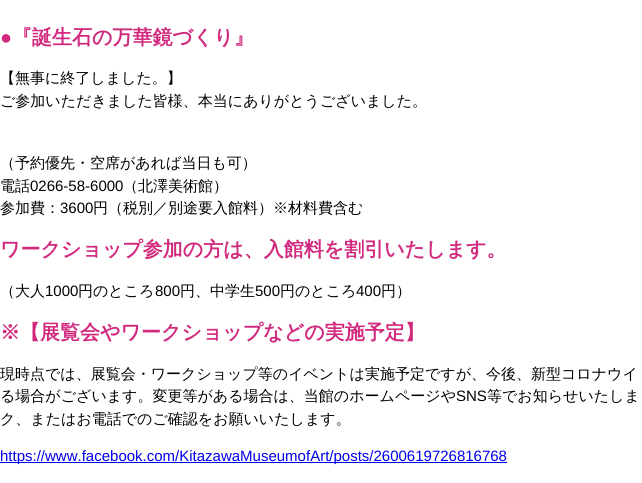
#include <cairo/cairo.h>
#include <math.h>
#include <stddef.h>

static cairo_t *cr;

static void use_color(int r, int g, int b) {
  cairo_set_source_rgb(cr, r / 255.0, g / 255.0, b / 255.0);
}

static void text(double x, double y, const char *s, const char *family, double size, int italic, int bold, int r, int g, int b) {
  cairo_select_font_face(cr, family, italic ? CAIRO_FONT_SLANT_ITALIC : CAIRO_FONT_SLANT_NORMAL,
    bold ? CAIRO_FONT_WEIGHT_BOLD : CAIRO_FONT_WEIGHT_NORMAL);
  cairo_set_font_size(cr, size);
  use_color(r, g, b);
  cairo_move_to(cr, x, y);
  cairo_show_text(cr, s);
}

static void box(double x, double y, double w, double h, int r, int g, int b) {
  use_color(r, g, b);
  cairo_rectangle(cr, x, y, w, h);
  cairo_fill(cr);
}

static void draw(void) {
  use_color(255, 255, 255);
  cairo_paint(cr);
  box(0, 462, 507, 1, 0, 0, 238);
  text(0, 44, "●", "Liberation Sans", 20, 0, 1, 209, 41, 125);
  text(12, 44, "『誕生石の万華鏡づくり』", "WenQuanYi Zen Hei", 20, 0, 1, 209, 41, 125);
  text(0, 83, "【無事に終了しました。】", "WenQuanYi Zen Hei Medium", 15, 0, 0, 0, 0, 0);
  text(0, 106, "ご参加いただきました皆様、本当にありがとうございました。", "WenQuanYi Zen Hei Medium", 15, 0, 0, 0, 0, 0);
  text(0, 168, "（予約優先・空席があれば当日も可）", "WenQuanYi Zen Hei Medium", 15, 0, 0, 0, 0, 0);
  text(0, 191, "電話", "WenQuanYi Zen Hei Medium", 15, 0, 0, 0, 0, 0);
  text(30, 191, "0266-58-6000", "Liberation Sans", 15, 0, 0, 0, 0, 0);
  text(123, 191, "（北澤美術館）", "WenQuanYi Zen Hei Medium", 15, 0, 0, 0, 0, 0);
  text(0, 213, "参加費：", "WenQuanYi Zen Hei Medium", 15, 0, 0, 0, 0, 0);
  text(60, 213, "3600", "Liberation Sans", 15, 0, 0, 0, 0, 0);
  text(93, 213, "円（税別／別途要入館料）※材料費含む", "WenQuanYi Zen Hei Medium", 15, 0, 0, 0, 0, 0);
  text(0, 256, "ワークショップ参加の方は、入館料を割引いたします。", "WenQuanYi Zen Hei", 20, 0, 1, 209, 41, 125);
  text(0, 296, "（大人", "WenQuanYi Zen Hei Medium", 15, 0, 0, 0, 0, 0);
  text(45, 296, "1000", "Liberation Sans", 15, 0, 0, 0, 0, 0);
  text(78, 296, "円のところ", "WenQuanYi Zen Hei Medium", 15, 0, 0, 0, 0, 0);
  text(155, 296, "800", "Liberation Sans", 15, 0, 0, 0, 0, 0);
  text(180, 296, "円、中学生", "WenQuanYi Zen Hei Medium", 15, 0, 0, 0, 0, 0);
  text(255, 296, "500", "Liberation Sans", 15, 0, 0, 0, 0, 0);
  text(280, 296, "円のところ", "WenQuanYi Zen Hei Medium", 15, 0, 0, 0, 0, 0);
  text(356, 296, "400", "Liberation Sans", 15, 0, 0, 0, 0, 0);
  text(381, 296, "円）", "WenQuanYi Zen Hei Medium", 15, 0, 0, 0, 0, 0);
  text(0, 339, "※【展覧会やワークショップなどの実施予定】", "WenQuanYi Zen Hei", 20, 0, 1, 209, 41, 125);
  text(0, 379, "現時点では、展覧会・ワークショップ等のイベントは実施予定ですが、今後、新型コロナウイ", "WenQuanYi Zen Hei Medium", 15, 0, 0, 0, 0, 0);
  text(0, 401, "る場合がございます。変更等がある場合は、当館のホームページや", "WenQuanYi Zen Hei Medium", 15, 0, 0, 0, 0, 0);
  text(456, 401, "SNS", "Liberation Sans", 15, 0, 0, 0, 0, 0);
  text(487, 401, "等でお知らせいたしま", "WenQuanYi Zen Hei Medium", 15, 0, 0, 0, 0, 0);
  text(0, 424, "ク、またはお電話でのご確認をお願いいたします。", "WenQuanYi Zen Hei Medium", 15, 0, 0, 0, 0, 0);
  text(0, 461, "https://www.facebook.com/KitazawaMuseumofArt/posts/2600619726816768", "Liberation Sans", 15, 0, 0, 0, 0, 238);
}

int main(void) {
  cairo_surface_t *surface = cairo_image_surface_create(CAIRO_FORMAT_RGB24, 642, 483);
  cr = cairo_create(surface);
  cairo_font_options_t *options = cairo_font_options_create();
  cairo_font_options_set_hint_metrics(options, CAIRO_HINT_METRICS_OFF);
  cairo_font_options_set_hint_style(options, CAIRO_HINT_STYLE_NONE);
  cairo_set_font_options(cr, options);
  cairo_set_miter_limit(cr, 4);
  draw();
  cairo_surface_write_to_png(surface, "out.png");
  cairo_font_options_destroy(options);
  cairo_destroy(cr);
  cairo_surface_destroy(surface);
  return 0;
}
